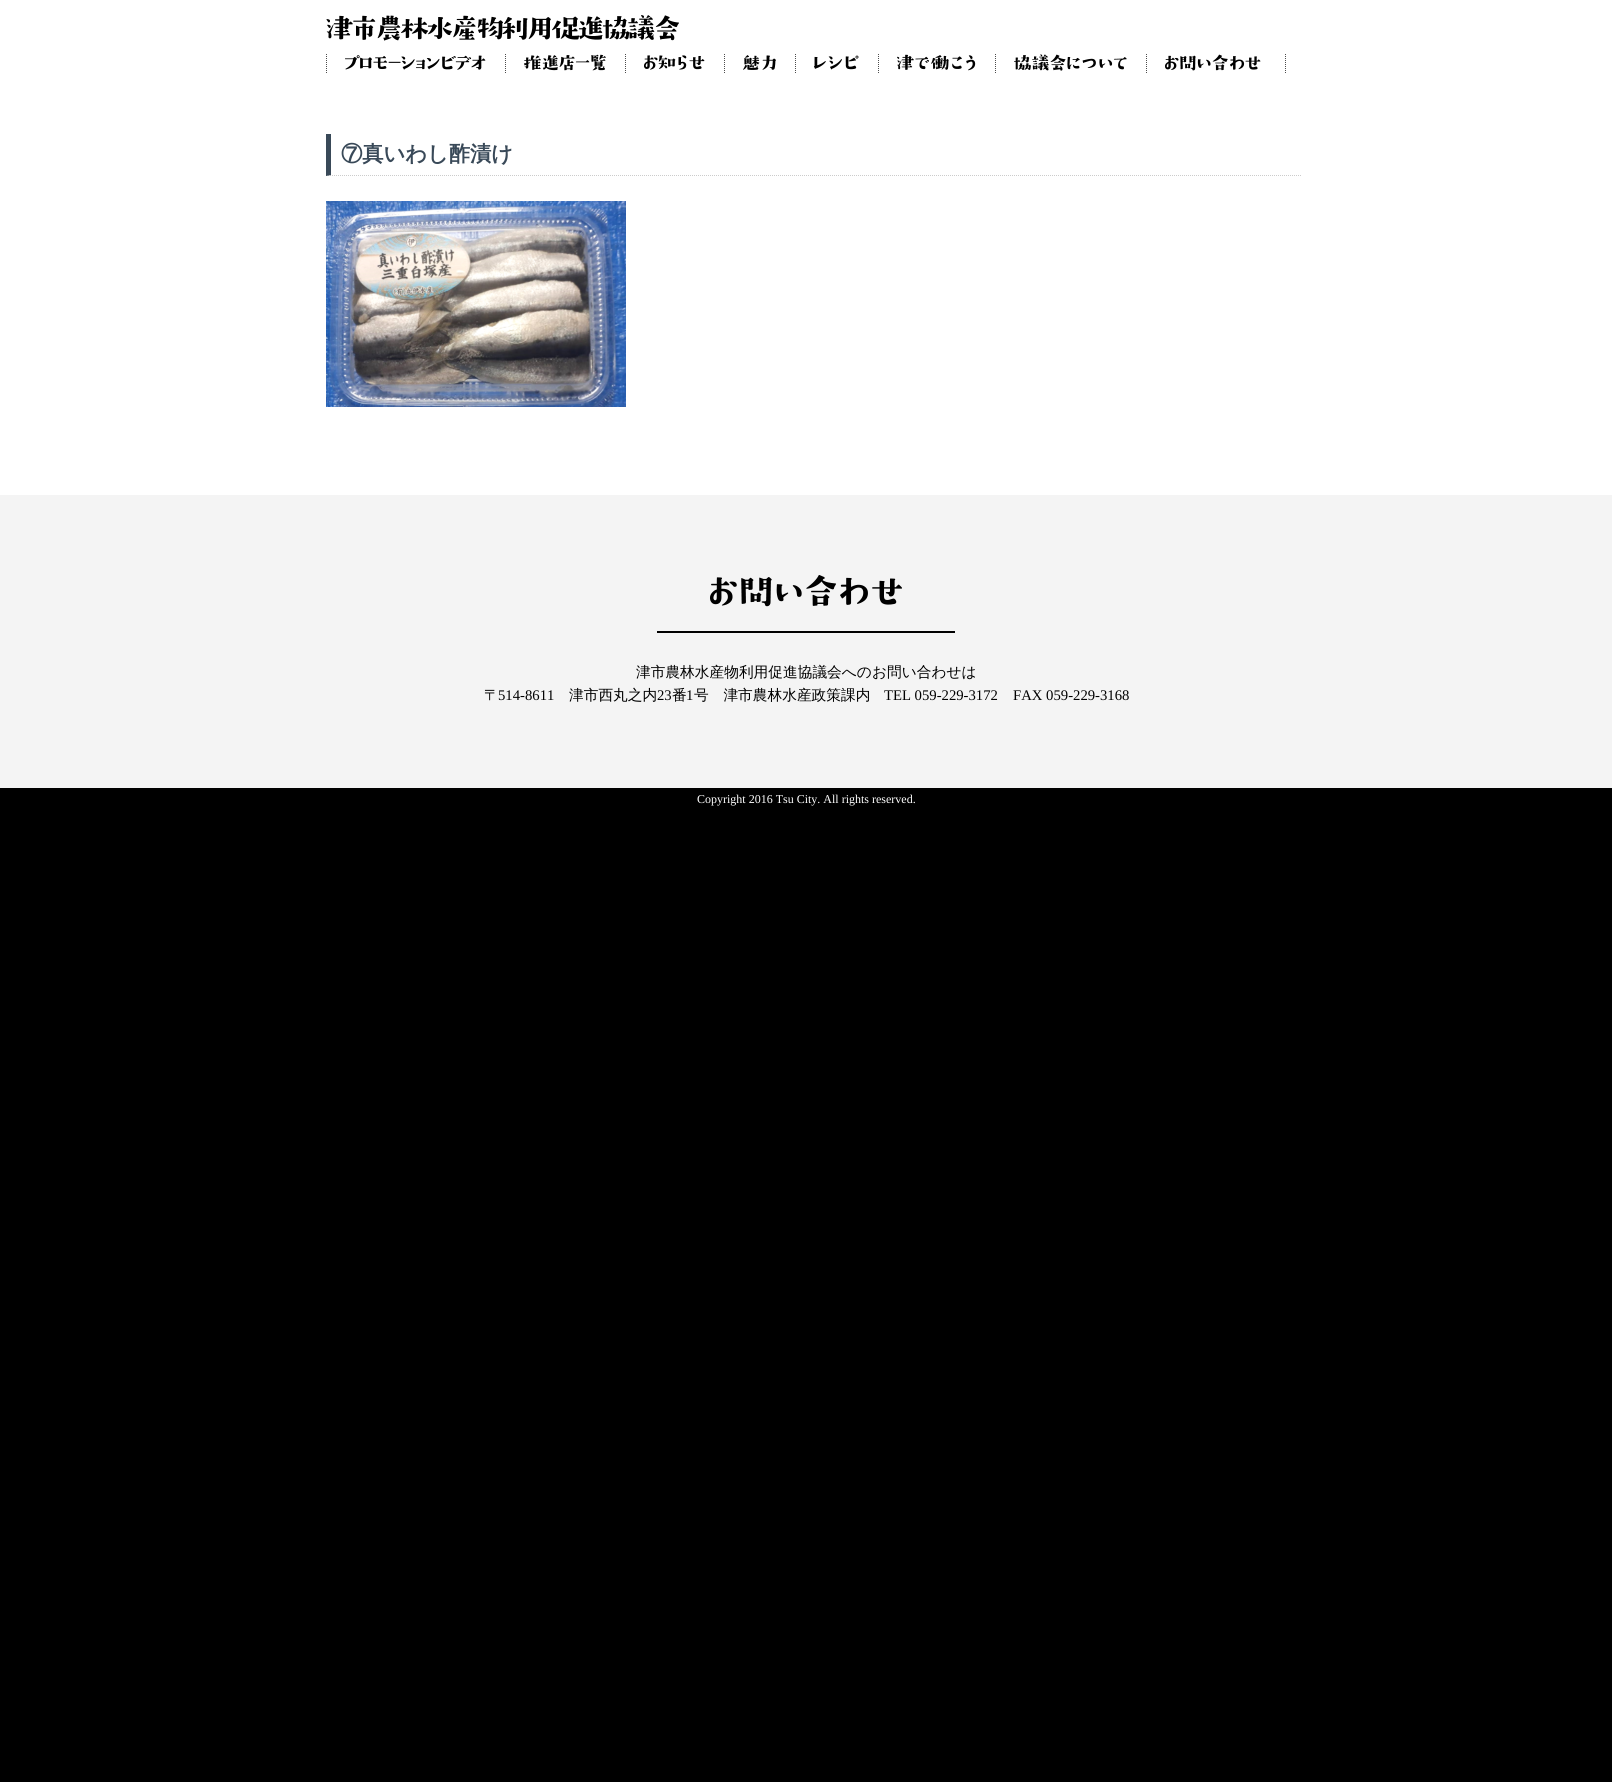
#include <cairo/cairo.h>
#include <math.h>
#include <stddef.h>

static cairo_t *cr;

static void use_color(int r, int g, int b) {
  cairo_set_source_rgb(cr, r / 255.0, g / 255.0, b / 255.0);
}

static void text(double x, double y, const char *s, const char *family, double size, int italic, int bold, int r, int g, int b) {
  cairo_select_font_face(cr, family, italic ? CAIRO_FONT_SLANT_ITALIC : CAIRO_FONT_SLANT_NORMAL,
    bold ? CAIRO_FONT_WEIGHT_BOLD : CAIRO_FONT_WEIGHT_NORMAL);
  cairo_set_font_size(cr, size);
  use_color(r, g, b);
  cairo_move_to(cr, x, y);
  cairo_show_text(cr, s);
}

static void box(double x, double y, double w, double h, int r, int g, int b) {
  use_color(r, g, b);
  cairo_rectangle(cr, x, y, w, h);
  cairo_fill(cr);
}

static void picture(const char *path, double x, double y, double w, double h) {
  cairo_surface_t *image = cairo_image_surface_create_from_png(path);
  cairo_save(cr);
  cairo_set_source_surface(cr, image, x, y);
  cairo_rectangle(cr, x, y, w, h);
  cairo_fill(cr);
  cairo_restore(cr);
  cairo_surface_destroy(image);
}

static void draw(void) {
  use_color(0, 0, 0);
  cairo_paint(cr);
  box(0, 0, 1612, 495, 255, 255, 255);
  picture("img_01.png", 326, 15, 353, 26);
  picture("img_02.png", 1285, 54, 1, 19);
  picture("img_02.png", 326, 54, 1, 19);
  picture("img_03.png", 345, 55, 141, 15);
  picture("img_02.png", 505, 54, 1, 19);
  picture("img_04.png", 524, 54, 82, 17);
  picture("img_02.png", 625, 54, 1, 19);
  picture("img_05.png", 644, 55, 61, 15);
  picture("img_02.png", 724, 54, 1, 19);
  picture("img_06.png", 743, 55, 33, 15);
  picture("img_02.png", 795, 54, 1, 19);
  picture("img_07.png", 814, 55, 45, 15);
  picture("img_02.png", 878, 54, 1, 19);
  picture("img_08.png", 897, 54, 79, 17);
  picture("img_02.png", 995, 54, 1, 19);
  picture("img_09.png", 1014, 54, 113, 17);
  picture("img_02.png", 1146, 54, 1, 19);
  picture("img_10.png", 1165, 54, 96, 17);
  cairo_new_path(cr);
  cairo_move_to(cr, 326, 175.5);
  cairo_line_to(cr, 1301, 175.5);
  use_color(204, 204, 204);
  cairo_set_line_width(cr, 1);
  cairo_set_dash(cr, (double[]){1, 1}, 2, 0);
  cairo_stroke(cr);
  use_color(57, 73, 88);
  cairo_new_path(cr);
  cairo_move_to(cr, 326, 176);
  cairo_line_to(cr, 326, 134);
  cairo_line_to(cr, 331, 134);
  cairo_line_to(cr, 331, 175);
  cairo_close_path(cr);
  cairo_fill(cr);
  picture("img_11.png", 326, 201, 300, 206);
  box(0, 495, 1612, 293, 244, 244, 244);
  picture("img_12.png", 657, 575, 298, 58);
  text(341, 161, "⑦真いわし酢漬け", "WenQuanYi Zen Hei", 21.25, 0, 1, 57, 73, 88);
  text(636, 677, "津市農林水産物利用促進協議会へのお問い合わせは", "WenQuanYi Zen Hei Medium", 14.7, 0, 0, 0, 0, 0);
  text(484, 700, "〒", "WenQuanYi Zen Hei Medium", 14.7, 0, 0, 0, 0, 0);
  text(498, 700, "514-8611", "Liberation Serif", 14.7, 0, 0, 0, 0, 0);
  text(569, 700, "津市西丸之内", "WenQuanYi Zen Hei Medium", 14.7, 0, 0, 0, 0, 0);
  text(657, 700, "23", "Liberation Serif", 14.7, 0, 0, 0, 0, 0);
  text(672, 700, "番", "WenQuanYi Zen Hei Medium", 14.7, 0, 0, 0, 0, 0);
  text(686, 700, "1", "Liberation Serif", 14.7, 0, 0, 0, 0, 0);
  text(694, 700, "号　津市農林水産政策課内", "WenQuanYi Zen Hei Medium", 14.7, 0, 0, 0, 0, 0);
  text(884, 700, "TEL 059-229-3172", "Liberation Serif", 14.7, 0, 0, 0, 0, 0);
  text(1013, 700, "FAX 059-229-3168", "Liberation Serif", 14.7, 0, 0, 0, 0, 0);
  text(697, 803, "Copyright 2016 Tsu City. All rights reserved.", "Liberation Serif", 12, 0, 0, 255, 255, 255);
}

int main(void) {
  cairo_surface_t *surface = cairo_image_surface_create(CAIRO_FORMAT_RGB24, 1612, 1782);
  cr = cairo_create(surface);
  cairo_font_options_t *options = cairo_font_options_create();
  cairo_font_options_set_hint_metrics(options, CAIRO_HINT_METRICS_OFF);
  cairo_font_options_set_hint_style(options, CAIRO_HINT_STYLE_NONE);
  cairo_set_font_options(cr, options);
  cairo_set_miter_limit(cr, 4);
  draw();
  cairo_surface_write_to_png(surface, "out.png");
  cairo_font_options_destroy(options);
  cairo_destroy(cr);
  cairo_surface_destroy(surface);
  return 0;
}
